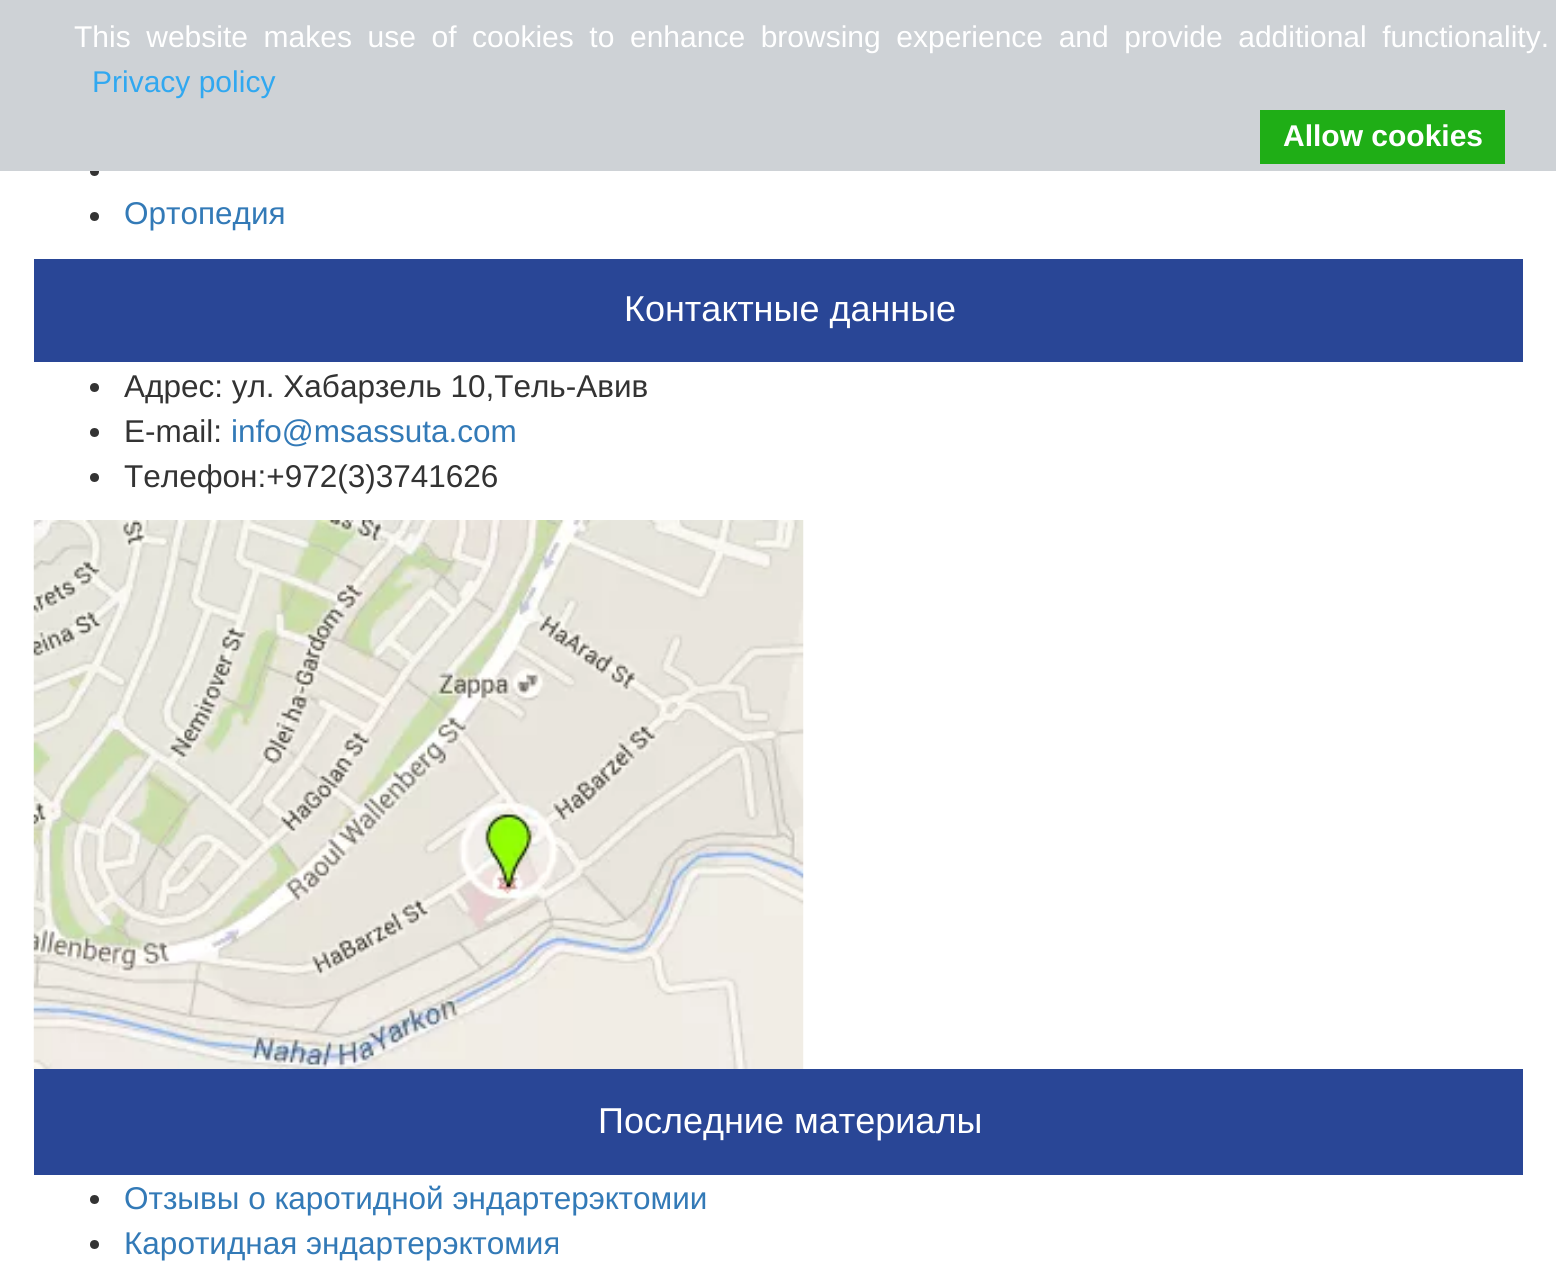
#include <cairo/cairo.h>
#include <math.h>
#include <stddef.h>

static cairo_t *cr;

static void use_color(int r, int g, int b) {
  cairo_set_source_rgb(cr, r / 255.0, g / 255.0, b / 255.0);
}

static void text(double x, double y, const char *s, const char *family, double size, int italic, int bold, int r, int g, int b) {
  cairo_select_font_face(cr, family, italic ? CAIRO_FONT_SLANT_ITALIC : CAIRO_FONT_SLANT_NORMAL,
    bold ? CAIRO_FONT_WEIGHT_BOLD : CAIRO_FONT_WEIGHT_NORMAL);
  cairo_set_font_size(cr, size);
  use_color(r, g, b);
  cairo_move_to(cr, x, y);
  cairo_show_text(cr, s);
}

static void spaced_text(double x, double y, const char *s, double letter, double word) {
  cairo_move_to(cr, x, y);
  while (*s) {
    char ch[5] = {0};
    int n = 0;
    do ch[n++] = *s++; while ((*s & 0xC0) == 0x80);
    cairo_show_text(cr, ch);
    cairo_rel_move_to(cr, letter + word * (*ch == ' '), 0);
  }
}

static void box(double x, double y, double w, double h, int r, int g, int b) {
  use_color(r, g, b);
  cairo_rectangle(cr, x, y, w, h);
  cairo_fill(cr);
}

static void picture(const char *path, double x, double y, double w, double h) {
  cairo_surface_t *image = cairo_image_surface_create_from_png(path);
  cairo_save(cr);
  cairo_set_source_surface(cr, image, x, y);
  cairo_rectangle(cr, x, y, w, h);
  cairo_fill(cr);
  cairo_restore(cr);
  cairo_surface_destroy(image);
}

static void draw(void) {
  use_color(255, 255, 255);
  cairo_paint(cr);
  use_color(51, 51, 51);
  cairo_arc(cr, 94.5, 171.5, 4.5, 0, 2 * M_PI);
  cairo_fill(cr);
  box(0, 0, 1556, 171, 206, 210, 214);
  box(1260, 110, 245, 54, 31, 174, 22);
  use_color(51, 51, 51);
  cairo_arc(cr, 94.5, 216.5, 4.5, 0, 2 * M_PI);
  cairo_fill(cr);
  box(34, 259, 1489, 103, 41, 70, 150);
  use_color(51, 51, 51);
  cairo_arc(cr, 94.5, 387.5, 4.5, 0, 2 * M_PI);
  cairo_fill(cr);
  cairo_arc(cr, 94.5, 432.5, 4.5, 0, 2 * M_PI);
  cairo_fill(cr);
  cairo_arc(cr, 94.5, 477.5, 4.5, 0, 2 * M_PI);
  cairo_fill(cr);
  picture("img_01.png", 33, 520, 771, 549);
  box(34, 1069, 1489, 106, 41, 70, 150);
  use_color(51, 51, 51);
  cairo_arc(cr, 94.5, 1199.5, 4.5, 0, 2 * M_PI);
  cairo_fill(cr);
  cairo_arc(cr, 94.5, 1244.5, 4.5, 0, 2 * M_PI);
  cairo_fill(cr);
  cairo_select_font_face(cr, "Liberation Sans", CAIRO_FONT_SLANT_NORMAL, CAIRO_FONT_WEIGHT_NORMAL);
  cairo_set_font_size(cr, 30);
  use_color(255, 255, 255);
  spaced_text(74, 47, "This website makes use of cookies to enhance browsing experience and provide additional functionality.", 0, 7.25);
  text(92, 92, "Privacy policy", "Liberation Sans", 30, 0, 0, 49, 168, 240);
  text(1283, 146, "Allow cookies", "Liberation Sans", 30, 0, 1, 255, 255, 255);
  text(124, 224, "Ортопедия", "Liberation Sans", 31.5, 0, 0, 51, 122, 183);
  text(624, 321, "Контактные данные", "Liberation Sans", 36, 0, 0, 255, 255, 255);
  text(124, 397, "Адрес: ул. Хабарзель 10,Тель-Авив", "Liberation Sans", 31.5, 0, 0, 51, 51, 51);
  text(124, 442, "E-mail:", "Liberation Sans", 31.5, 0, 0, 51, 51, 51);
  text(231, 442, "info@msassuta.com", "Liberation Sans", 31.5, 0, 0, 51, 122, 183);
  text(124, 487, "Телефон:+972(3)3741626", "Liberation Sans", 31.5, 0, 0, 51, 51, 51);
  text(598, 1133, "Последние материалы", "Liberation Sans", 36, 0, 0, 255, 255, 255);
  text(124, 1209, "Отзывы о каротидной эндартерэктомии", "Liberation Sans", 31.5, 0, 0, 51, 122, 183);
  text(124, 1254, "Каротидная эндартерэктомия", "Liberation Sans", 31.5, 0, 0, 51, 122, 183);
}

int main(void) {
  cairo_surface_t *surface = cairo_image_surface_create(CAIRO_FORMAT_RGB24, 1556, 1268);
  cr = cairo_create(surface);
  cairo_font_options_t *options = cairo_font_options_create();
  cairo_font_options_set_hint_metrics(options, CAIRO_HINT_METRICS_OFF);
  cairo_font_options_set_hint_style(options, CAIRO_HINT_STYLE_NONE);
  cairo_set_font_options(cr, options);
  cairo_set_miter_limit(cr, 4);
  draw();
  cairo_surface_write_to_png(surface, "out.png");
  cairo_font_options_destroy(options);
  cairo_destroy(cr);
  cairo_surface_destroy(surface);
  return 0;
}
